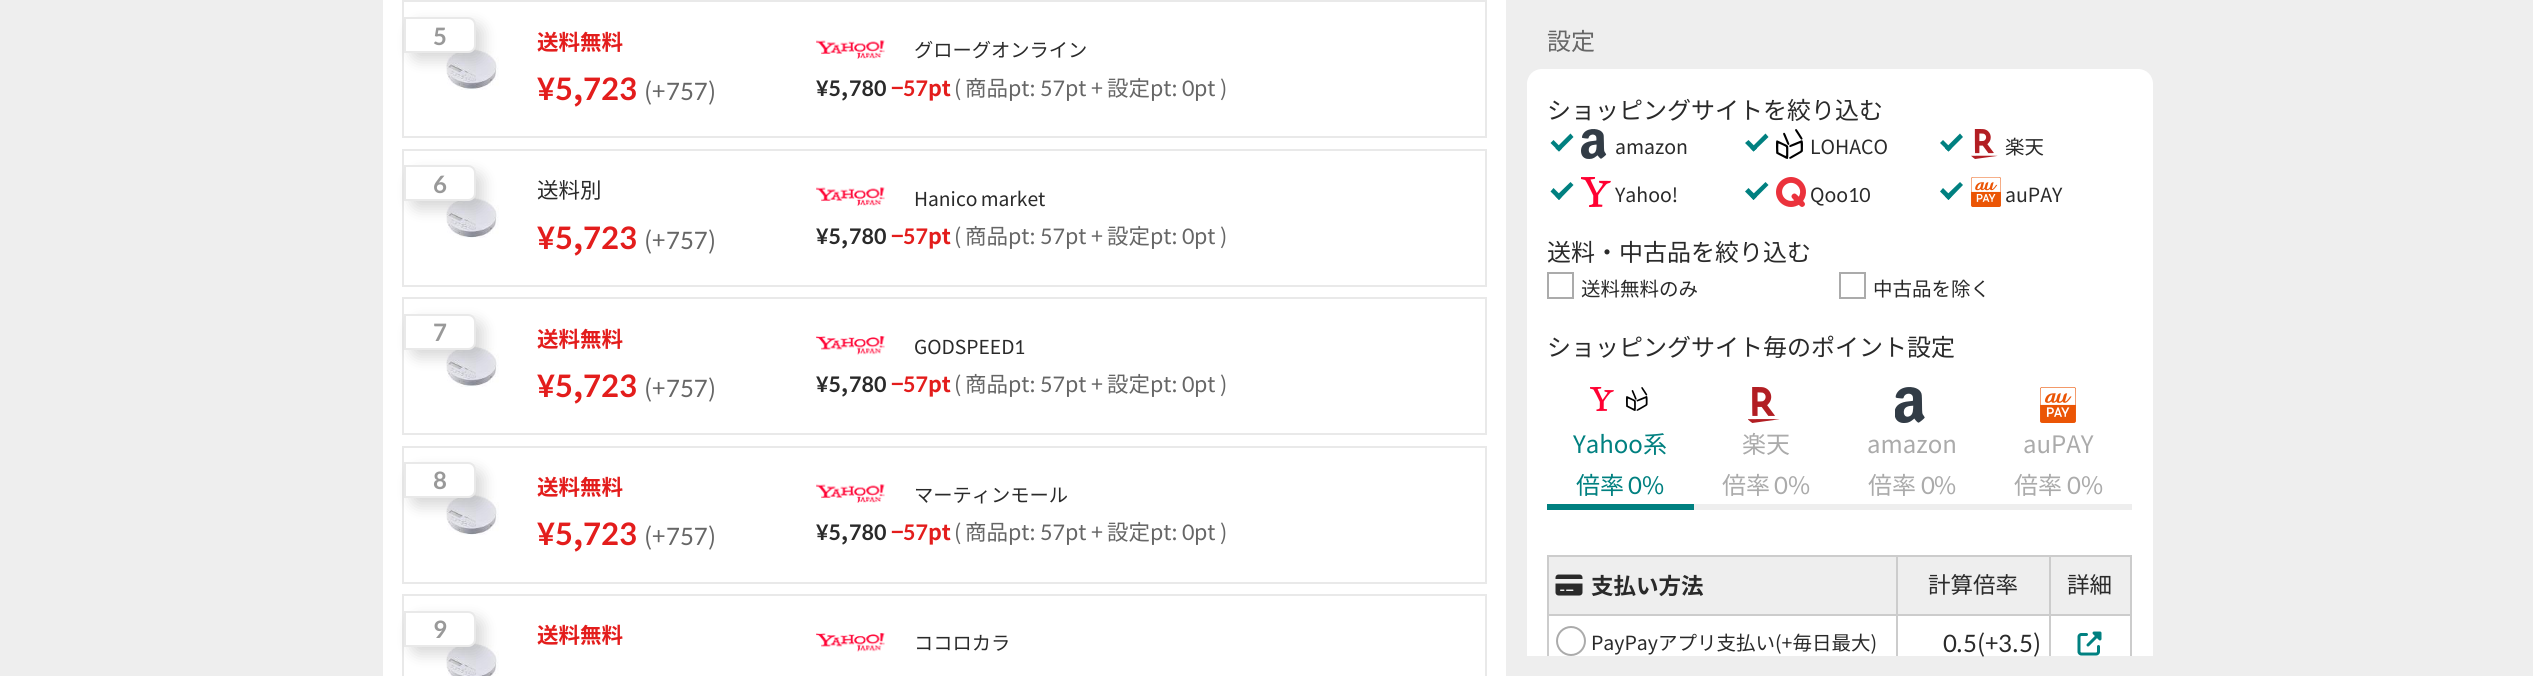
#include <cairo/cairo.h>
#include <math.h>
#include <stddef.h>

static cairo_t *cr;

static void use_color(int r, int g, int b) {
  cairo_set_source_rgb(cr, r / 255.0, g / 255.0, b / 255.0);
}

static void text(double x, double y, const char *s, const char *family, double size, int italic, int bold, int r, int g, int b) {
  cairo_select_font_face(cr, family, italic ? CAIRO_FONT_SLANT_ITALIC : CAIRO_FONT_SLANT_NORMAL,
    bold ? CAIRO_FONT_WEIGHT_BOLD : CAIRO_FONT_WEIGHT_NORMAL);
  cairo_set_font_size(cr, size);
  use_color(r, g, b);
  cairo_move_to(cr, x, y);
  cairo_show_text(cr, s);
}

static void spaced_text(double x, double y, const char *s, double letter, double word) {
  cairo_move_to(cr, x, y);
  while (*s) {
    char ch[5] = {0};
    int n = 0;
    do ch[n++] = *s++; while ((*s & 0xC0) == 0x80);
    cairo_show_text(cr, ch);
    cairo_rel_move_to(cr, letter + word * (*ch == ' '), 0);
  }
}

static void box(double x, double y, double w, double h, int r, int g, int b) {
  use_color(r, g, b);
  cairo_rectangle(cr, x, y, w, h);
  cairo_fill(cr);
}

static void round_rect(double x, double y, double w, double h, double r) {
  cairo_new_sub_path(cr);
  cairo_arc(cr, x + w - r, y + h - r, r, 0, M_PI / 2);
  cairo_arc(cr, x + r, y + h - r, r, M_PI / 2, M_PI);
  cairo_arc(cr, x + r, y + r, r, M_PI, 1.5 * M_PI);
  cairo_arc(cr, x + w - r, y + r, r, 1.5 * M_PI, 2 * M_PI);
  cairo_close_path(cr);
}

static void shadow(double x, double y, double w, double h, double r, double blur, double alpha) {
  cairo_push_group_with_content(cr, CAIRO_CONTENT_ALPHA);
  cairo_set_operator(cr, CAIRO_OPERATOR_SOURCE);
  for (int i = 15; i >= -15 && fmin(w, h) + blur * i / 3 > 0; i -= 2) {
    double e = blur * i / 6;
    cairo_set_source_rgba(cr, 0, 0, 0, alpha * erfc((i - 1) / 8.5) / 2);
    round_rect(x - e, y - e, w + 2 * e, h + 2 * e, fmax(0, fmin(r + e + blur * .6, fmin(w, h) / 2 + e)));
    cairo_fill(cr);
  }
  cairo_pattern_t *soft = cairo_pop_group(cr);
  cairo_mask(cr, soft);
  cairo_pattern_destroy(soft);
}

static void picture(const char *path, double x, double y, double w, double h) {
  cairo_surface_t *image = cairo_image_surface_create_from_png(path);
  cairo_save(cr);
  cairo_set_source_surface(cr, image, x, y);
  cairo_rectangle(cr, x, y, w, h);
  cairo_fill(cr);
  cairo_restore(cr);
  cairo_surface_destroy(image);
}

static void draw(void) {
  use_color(238, 238, 238);
  cairo_paint(cr);
  box(383, 0, 1123, 676, 255, 255, 255);
  cairo_rectangle(cr, 403, 1, 1083, 136);
  use_color(233, 233, 233);
  cairo_stroke(cr);
  picture("img_01.png", 446, 49, 53, 41);
  use_color(0, 0, 0);
  shadow(411, 24, 72, 36, 8, 7.5, 0.16);
  use_color(255, 255, 255);
  cairo_new_path(cr);
  cairo_move_to(cr, 404, 17);
  cairo_line_to(cr, 468, 17);
  cairo_curve_to(cr, 472.5, 17, 476, 20.5, 476, 25);
  cairo_line_to(cr, 476, 45);
  cairo_curve_to(cr, 476, 49.5, 472.5, 53, 468, 53);
  cairo_line_to(cr, 404, 53);
  cairo_close_path(cr);
  cairo_fill(cr);
  cairo_new_path(cr);
  cairo_move_to(cr, 405, 18);
  cairo_line_to(cr, 468, 18);
  cairo_curve_to(cr, 472, 18, 475, 21, 475, 25);
  cairo_line_to(cr, 475, 45);
  cairo_curve_to(cr, 475, 49, 472, 52, 468, 52);
  cairo_line_to(cr, 405, 52);
  cairo_close_path(cr);
  cairo_set_source_rgba(cr, 0.149, 0.149, 0.149, 0.1);
  cairo_stroke(cr);
  picture("img_02.png", 816, 40, 69, 19);
  cairo_rectangle(cr, 403, 150, 1083, 136);
  use_color(233, 233, 233);
  cairo_stroke(cr);
  picture("img_03.png", 446, 198, 53, 40);
  use_color(0, 0, 0);
  shadow(411, 173, 72, 36, 8, 7.5, 0.16);
  use_color(255, 255, 255);
  cairo_new_path(cr);
  cairo_move_to(cr, 404, 165);
  cairo_line_to(cr, 468, 165);
  cairo_curve_to(cr, 472.5, 165, 476, 168.5, 476, 173);
  cairo_line_to(cr, 476, 193);
  cairo_curve_to(cr, 476, 197.5, 472.5, 201, 468, 201);
  cairo_line_to(cr, 404, 201);
  cairo_close_path(cr);
  cairo_fill(cr);
  cairo_new_path(cr);
  cairo_move_to(cr, 405, 166);
  cairo_line_to(cr, 468, 166);
  cairo_curve_to(cr, 472, 166, 475, 169, 475, 173);
  cairo_line_to(cr, 475, 193);
  cairo_curve_to(cr, 475, 197, 472, 200, 468, 200);
  cairo_line_to(cr, 405, 200);
  cairo_close_path(cr);
  cairo_set_source_rgba(cr, 0.149, 0.149, 0.149, 0.1);
  cairo_stroke(cr);
  picture("img_02.png", 816, 187, 69, 19);
  cairo_rectangle(cr, 403, 298, 1083, 136);
  use_color(233, 233, 233);
  cairo_stroke(cr);
  picture("img_01.png", 446, 346, 53, 41);
  use_color(0, 0, 0);
  shadow(411, 321, 72, 36, 8, 7.5, 0.16);
  use_color(255, 255, 255);
  cairo_new_path(cr);
  cairo_move_to(cr, 404, 314);
  cairo_line_to(cr, 468, 314);
  cairo_curve_to(cr, 472.5, 314, 476, 317.5, 476, 322);
  cairo_line_to(cr, 476, 342);
  cairo_curve_to(cr, 476, 346.5, 472.5, 350, 468, 350);
  cairo_line_to(cr, 404, 350);
  cairo_close_path(cr);
  cairo_fill(cr);
  cairo_new_path(cr);
  cairo_move_to(cr, 405, 315);
  cairo_line_to(cr, 468, 315);
  cairo_curve_to(cr, 472, 315, 475, 318, 475, 322);
  cairo_line_to(cr, 475, 342);
  cairo_curve_to(cr, 475, 346, 472, 349, 468, 349);
  cairo_line_to(cr, 405, 349);
  cairo_close_path(cr);
  cairo_set_source_rgba(cr, 0.149, 0.149, 0.149, 0.1);
  cairo_stroke(cr);
  picture("img_04.png", 816, 336, 69, 19);
  cairo_rectangle(cr, 403, 447, 1083, 136);
  use_color(233, 233, 233);
  cairo_stroke(cr);
  picture("img_03.png", 446, 495, 53, 40);
  use_color(0, 0, 0);
  shadow(411, 470, 72, 36, 8, 7.5, 0.16);
  use_color(255, 255, 255);
  cairo_new_path(cr);
  cairo_move_to(cr, 404, 462);
  cairo_line_to(cr, 468, 462);
  cairo_curve_to(cr, 472.5, 462, 476, 465.5, 476, 470);
  cairo_line_to(cr, 476, 490);
  cairo_curve_to(cr, 476, 494.5, 472.5, 498, 468, 498);
  cairo_line_to(cr, 404, 498);
  cairo_close_path(cr);
  cairo_fill(cr);
  cairo_new_path(cr);
  cairo_move_to(cr, 405, 463);
  cairo_line_to(cr, 468, 463);
  cairo_curve_to(cr, 472, 463, 475, 466, 475, 470);
  cairo_line_to(cr, 475, 490);
  cairo_curve_to(cr, 475, 494, 472, 497, 468, 497);
  cairo_line_to(cr, 405, 497);
  cairo_close_path(cr);
  cairo_set_source_rgba(cr, 0.149, 0.149, 0.149, 0.1);
  cairo_stroke(cr);
  picture("img_02.png", 816, 484, 69, 19);
  cairo_rectangle(cr, 403, 595, 1083, 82);
  use_color(233, 233, 233);
  cairo_stroke(cr);
  picture("img_05.png", 446, 643, 53, 33);
  use_color(0, 0, 0);
  shadow(411, 618, 72, 36, 8, 7.5, 0.16);
  use_color(255, 255, 255);
  cairo_new_path(cr);
  cairo_move_to(cr, 404, 611);
  cairo_line_to(cr, 468, 611);
  cairo_curve_to(cr, 472.5, 611, 476, 614.5, 476, 619);
  cairo_line_to(cr, 476, 639);
  cairo_curve_to(cr, 476, 643.5, 472.5, 647, 468, 647);
  cairo_line_to(cr, 404, 647);
  cairo_close_path(cr);
  cairo_fill(cr);
  cairo_new_path(cr);
  cairo_move_to(cr, 405, 612);
  cairo_line_to(cr, 468, 612);
  cairo_curve_to(cr, 472, 612, 475, 615, 475, 619);
  cairo_line_to(cr, 475, 639);
  cairo_curve_to(cr, 475, 643, 472, 646, 468, 646);
  cairo_line_to(cr, 405, 646);
  cairo_close_path(cr);
  cairo_set_source_rgba(cr, 0.149, 0.149, 0.149, 0.1);
  cairo_stroke(cr);
  picture("img_04.png", 816, 633, 69, 19);
  use_color(255, 255, 255);
  cairo_new_path(cr);
  cairo_move_to(cr, 1542, 69);
  cairo_line_to(cr, 2138, 69);
  cairo_curve_to(cr, 2146.5, 69, 2153, 75.5, 2153, 84);
  cairo_line_to(cr, 2153, 656);
  cairo_line_to(cr, 1527, 656);
  cairo_line_to(cr, 1527, 84);
  cairo_curve_to(cr, 1527, 75.5, 1533.5, 69, 1542, 69);
  cairo_close_path(cr);
  cairo_fill(cr);
  use_color(0, 128, 128);
  cairo_new_path(cr);
  cairo_move_to(cr, 1570.5, 133.5);
  cairo_line_to(cr, 1573.5, 137);
  cairo_line_to(cr, 1559, 151.5);
  cairo_line_to(cr, 1555.5, 148.5);
  cairo_close_path(cr);
  cairo_fill(cr);
  cairo_new_path(cr);
  cairo_move_to(cr, 1553.5, 140);
  cairo_line_to(cr, 1562, 148.5);
  cairo_line_to(cr, 1559, 151.5);
  cairo_line_to(cr, 1550.5, 143);
  cairo_close_path(cr);
  cairo_fill(cr);
  picture("img_06.png", 1581, 129, 26, 30);
  cairo_new_path(cr);
  cairo_move_to(cr, 1765.5, 133.5);
  cairo_line_to(cr, 1768.5, 137);
  cairo_line_to(cr, 1753.5, 151.5);
  cairo_line_to(cr, 1750.5, 148.5);
  cairo_close_path(cr);
  cairo_fill(cr);
  cairo_new_path(cr);
  cairo_move_to(cr, 1748.5, 140);
  cairo_line_to(cr, 1757, 148.5);
  cairo_line_to(cr, 1753.5, 151.5);
  cairo_line_to(cr, 1745, 143);
  cairo_close_path(cr);
  cairo_fill(cr);
  picture("img_07.png", 1776, 129, 27, 30);
  cairo_new_path(cr);
  cairo_move_to(cr, 1960, 133.5);
  cairo_line_to(cr, 1963, 137);
  cairo_line_to(cr, 1948.5, 151.5);
  cairo_line_to(cr, 1945, 148.5);
  cairo_close_path(cr);
  cairo_fill(cr);
  cairo_new_path(cr);
  cairo_move_to(cr, 1943, 140);
  cairo_line_to(cr, 1951.5, 148.5);
  cairo_line_to(cr, 1948.5, 151.5);
  cairo_line_to(cr, 1940, 143);
  cairo_close_path(cr);
  cairo_fill(cr);
  picture("img_08.png", 1971, 129, 27, 30);
  cairo_new_path(cr);
  cairo_move_to(cr, 1570.5, 182);
  cairo_line_to(cr, 1573.5, 185);
  cairo_line_to(cr, 1559, 200);
  cairo_line_to(cr, 1555.5, 196.5);
  cairo_close_path(cr);
  cairo_fill(cr);
  cairo_new_path(cr);
  cairo_move_to(cr, 1553.5, 188);
  cairo_line_to(cr, 1562, 196.5);
  cairo_line_to(cr, 1559, 200);
  cairo_line_to(cr, 1550.5, 191.5);
  cairo_close_path(cr);
  cairo_fill(cr);
  picture("img_09.png", 1581, 177, 30, 30);
  cairo_new_path(cr);
  cairo_move_to(cr, 1765.5, 182);
  cairo_line_to(cr, 1768.5, 185);
  cairo_line_to(cr, 1753.5, 200);
  cairo_line_to(cr, 1750.5, 196.5);
  cairo_close_path(cr);
  cairo_fill(cr);
  cairo_new_path(cr);
  cairo_move_to(cr, 1748.5, 188);
  cairo_line_to(cr, 1757, 196.5);
  cairo_line_to(cr, 1753.5, 200);
  cairo_line_to(cr, 1745, 191.5);
  cairo_close_path(cr);
  cairo_fill(cr);
  picture("img_10.png", 1776, 177, 30, 30);
  cairo_new_path(cr);
  cairo_move_to(cr, 1960, 182);
  cairo_line_to(cr, 1963, 185);
  cairo_line_to(cr, 1948.5, 200);
  cairo_line_to(cr, 1945, 196.5);
  cairo_close_path(cr);
  cairo_fill(cr);
  cairo_new_path(cr);
  cairo_move_to(cr, 1943, 188);
  cairo_line_to(cr, 1951.5, 196.5);
  cairo_line_to(cr, 1948.5, 200);
  cairo_line_to(cr, 1940, 191.5);
  cairo_close_path(cr);
  cairo_fill(cr);
  picture("img_11.png", 1971, 177, 30, 30);
  cairo_rectangle(cr, 1548, 273, 25, 25);
  use_color(171, 171, 171);
  cairo_stroke(cr);
  cairo_rectangle(cr, 1840, 273, 25, 25);
  cairo_stroke(cr);
  box(1547, 504, 147, 6, 0, 128, 128);
  picture("img_12.png", 1590, 387, 24, 24);
  picture("img_13.png", 1626, 387, 22, 24);
  box(1694, 504, 438, 6, 238, 238, 238);
  picture("img_14.png", 1748, 387, 32, 36);
  picture("img_15.png", 1895, 387, 30, 36);
  picture("img_16.png", 2040, 387, 36, 36);
  box(1549, 557, 581, 57, 238, 238, 238);
  box(2049, 555, 83, 2, 204, 204, 204);
  box(2049, 614, 83, 2, 204, 204, 204);
  box(2049, 614, 2, 42, 204, 204, 204);
  box(1896, 614, 155, 2, 204, 204, 204);
  box(2049, 555, 2, 60, 204, 204, 204);
  box(1896, 555, 155, 2, 204, 204, 204);
  box(1896, 614, 2, 42, 204, 204, 204);
  box(1547, 614, 351, 2, 204, 204, 204);
  box(1896, 555, 2, 60, 204, 204, 204);
  box(1547, 555, 351, 2, 204, 204, 204);
  box(1547, 614, 2, 42, 204, 204, 204);
  box(1547, 555, 2, 60, 204, 204, 204);
  picture("img_17.png", 1555, 574, 28, 22);
  box(2130, 614, 2, 42, 204, 204, 204);
  box(2130, 555, 2, 60, 204, 204, 204);
  cairo_arc(cr, 1571, 641, 14, 0, 2 * M_PI);
  use_color(171, 171, 171);
  cairo_stroke(cr);
  picture("img_18.png", 2077, 631, 25, 25);
  text(433, 45, "5", "Lato", 24, 0, 1, 153, 153, 153);
  text(537, 50, "送料無料", "Noto Sans JP", 21.5, 0, 1, 227, 29, 28);
  text(537, 100, "¥5", "Lato", 31, 0, 1, 227, 29, 28);
  text(573, 100, ",", "Noto Sans JP", 31, 0, 1, 227, 29, 28);
  text(583, 100, "723", "Lato", 31, 0, 1, 227, 29, 28);
  text(644, 100, "(+", "Noto Sans JP", 24, 0, 0, 102, 102, 102);
  text(666, 100, "757", "Lato", 24, 0, 0, 102, 102, 102);
  text(708, 100, ")", "Noto Sans JP", 24, 0, 0, 102, 102, 102);
  text(914, 57, "グローグオンライン", "Noto Sans JP", 19.25, 0, 0, 42, 42, 42);
  text(816, 96, "¥5", "Lato", 21.5, 0, 1, 42, 42, 42);
  text(849, 96, "780", "Lato", 21.5, 0, 1, 42, 42, 42);
  text(891, 96, "−", "Noto Sans JP", 21.5, 0, 1, 227, 29, 28);
  text(903, 96, "57", "Lato", 21.5, 0, 1, 227, 29, 28);
  text(928, 96, "pt", "Noto Sans JP", 21.5, 0, 1, 227, 29, 28);
  text(841, 96, ",", "Noto Sans JP", 21.5, 0, 1, 42, 42, 42);
  text(954, 96, "(", "Noto Sans JP", 21.5, 0, 0, 102, 102, 102);
  text(965, 96, "商品pt:", "Noto Sans JP", 21.5, 0, 0, 102, 102, 102);
  text(1040, 96, "57", "Lato", 21.5, 0, 0, 102, 102, 102);
  text(1065, 96, "pt", "Noto Sans JP", 21.5, 0, 0, 102, 102, 102);
  text(1091, 96, "+", "Noto Sans JP", 21.5, 0, 0, 102, 102, 102);
  text(1107, 96, "設定pt:", "Noto Sans JP", 21.5, 0, 0, 102, 102, 102);
  text(1182, 96, "0", "Lato", 21.5, 0, 0, 102, 102, 102);
  text(1194, 96, "pt", "Noto Sans JP", 21.5, 0, 0, 102, 102, 102);
  text(1220, 96, ")", "Noto Sans JP", 21.5, 0, 0, 102, 102, 102);
  text(433, 193, "6", "Lato", 24, 0, 1, 153, 153, 153);
  text(537, 198, "送料別", "Noto Sans JP", 21.5, 0, 0, 42, 42, 42);
  text(537, 249, "¥5", "Lato", 31, 0, 1, 227, 29, 28);
  text(573, 249, ",", "Noto Sans JP", 31, 0, 1, 227, 29, 28);
  text(583, 249, "723", "Lato", 31, 0, 1, 227, 29, 28);
  text(644, 249, "(+", "Noto Sans JP", 24, 0, 0, 102, 102, 102);
  text(666, 249, "757", "Lato", 24, 0, 0, 102, 102, 102);
  text(708, 249, ")", "Noto Sans JP", 24, 0, 0, 102, 102, 102);
  cairo_set_font_size(cr, 19.25);
  use_color(42, 42, 42);
  spaced_text(914, 206, "Hanico market", 0, -1);
  text(816, 244, "¥5", "Lato", 21.5, 0, 1, 42, 42, 42);
  text(849, 244, "780", "Lato", 21.5, 0, 1, 42, 42, 42);
  text(891, 244, "−", "Noto Sans JP", 21.5, 0, 1, 227, 29, 28);
  text(903, 244, "57", "Lato", 21.5, 0, 1, 227, 29, 28);
  text(928, 244, "pt", "Noto Sans JP", 21.5, 0, 1, 227, 29, 28);
  text(841, 244, ",", "Noto Sans JP", 21.5, 0, 1, 42, 42, 42);
  text(954, 244, "(", "Noto Sans JP", 21.5, 0, 0, 102, 102, 102);
  text(965, 244, "商品pt:", "Noto Sans JP", 21.5, 0, 0, 102, 102, 102);
  text(1040, 244, "57", "Lato", 21.5, 0, 0, 102, 102, 102);
  text(1065, 244, "pt", "Noto Sans JP", 21.5, 0, 0, 102, 102, 102);
  text(1091, 244, "+", "Noto Sans JP", 21.5, 0, 0, 102, 102, 102);
  text(1107, 244, "設定pt:", "Noto Sans JP", 21.5, 0, 0, 102, 102, 102);
  text(1182, 244, "0", "Lato", 21.5, 0, 0, 102, 102, 102);
  text(1194, 244, "pt", "Noto Sans JP", 21.5, 0, 0, 102, 102, 102);
  text(1220, 244, ")", "Noto Sans JP", 21.5, 0, 0, 102, 102, 102);
  text(433, 341, "7", "Lato", 24, 0, 1, 153, 153, 153);
  text(537, 347, "送料無料", "Noto Sans JP", 21.5, 0, 1, 227, 29, 28);
  text(537, 397, "¥5", "Lato", 31, 0, 1, 227, 29, 28);
  text(573, 397, ",", "Noto Sans JP", 31, 0, 1, 227, 29, 28);
  text(583, 397, "723", "Lato", 31, 0, 1, 227, 29, 28);
  text(644, 397, "(+", "Noto Sans JP", 24, 0, 0, 102, 102, 102);
  text(666, 397, "757", "Lato", 24, 0, 0, 102, 102, 102);
  text(708, 397, ")", "Noto Sans JP", 24, 0, 0, 102, 102, 102);
  text(914, 354, "GODSPEED", "Noto Sans JP", 19.25, 0, 0, 42, 42, 42);
  text(1014, 354, "1", "Lato", 19.25, 0, 0, 42, 42, 42);
  text(816, 392, "¥5", "Lato", 21.5, 0, 1, 42, 42, 42);
  text(849, 392, "780", "Lato", 21.5, 0, 1, 42, 42, 42);
  text(891, 392, "−", "Noto Sans JP", 21.5, 0, 1, 227, 29, 28);
  text(903, 392, "57", "Lato", 21.5, 0, 1, 227, 29, 28);
  text(928, 392, "pt", "Noto Sans JP", 21.5, 0, 1, 227, 29, 28);
  text(841, 392, ",", "Noto Sans JP", 21.5, 0, 1, 42, 42, 42);
  text(954, 392, "(", "Noto Sans JP", 21.5, 0, 0, 102, 102, 102);
  text(965, 392, "商品pt:", "Noto Sans JP", 21.5, 0, 0, 102, 102, 102);
  text(1040, 392, "57", "Lato", 21.5, 0, 0, 102, 102, 102);
  text(1065, 392, "pt", "Noto Sans JP", 21.5, 0, 0, 102, 102, 102);
  text(1091, 392, "+", "Noto Sans JP", 21.5, 0, 0, 102, 102, 102);
  text(1107, 392, "設定pt:", "Noto Sans JP", 21.5, 0, 0, 102, 102, 102);
  text(1182, 392, "0", "Lato", 21.5, 0, 0, 102, 102, 102);
  text(1194, 392, "pt", "Noto Sans JP", 21.5, 0, 0, 102, 102, 102);
  text(1220, 392, ")", "Noto Sans JP", 21.5, 0, 0, 102, 102, 102);
  text(433, 489, "8", "Lato", 24, 0, 1, 153, 153, 153);
  text(537, 495, "送料無料", "Noto Sans JP", 21.5, 0, 1, 227, 29, 28);
  text(537, 545, "¥5", "Lato", 31, 0, 1, 227, 29, 28);
  text(573, 545, ",", "Noto Sans JP", 31, 0, 1, 227, 29, 28);
  text(583, 545, "723", "Lato", 31, 0, 1, 227, 29, 28);
  text(644, 545, "(+", "Noto Sans JP", 24, 0, 0, 102, 102, 102);
  text(666, 545, "757", "Lato", 24, 0, 0, 102, 102, 102);
  text(708, 545, ")", "Noto Sans JP", 24, 0, 0, 102, 102, 102);
  text(914, 502, "マーティンモール", "Noto Sans JP", 19.25, 0, 0, 42, 42, 42);
  text(816, 540, "¥5", "Lato", 21.5, 0, 1, 42, 42, 42);
  text(849, 540, "780", "Lato", 21.5, 0, 1, 42, 42, 42);
  text(891, 540, "−", "Noto Sans JP", 21.5, 0, 1, 227, 29, 28);
  text(903, 540, "57", "Lato", 21.5, 0, 1, 227, 29, 28);
  text(928, 540, "pt", "Noto Sans JP", 21.5, 0, 1, 227, 29, 28);
  text(841, 540, ",", "Noto Sans JP", 21.5, 0, 1, 42, 42, 42);
  text(954, 540, "(", "Noto Sans JP", 21.5, 0, 0, 102, 102, 102);
  text(965, 540, "商品pt:", "Noto Sans JP", 21.5, 0, 0, 102, 102, 102);
  text(1040, 540, "57", "Lato", 21.5, 0, 0, 102, 102, 102);
  text(1065, 540, "pt", "Noto Sans JP", 21.5, 0, 0, 102, 102, 102);
  text(1091, 540, "+", "Noto Sans JP", 21.5, 0, 0, 102, 102, 102);
  text(1107, 540, "設定pt:", "Noto Sans JP", 21.5, 0, 0, 102, 102, 102);
  text(1182, 540, "0", "Lato", 21.5, 0, 0, 102, 102, 102);
  text(1194, 540, "pt", "Noto Sans JP", 21.5, 0, 0, 102, 102, 102);
  text(1220, 540, ")", "Noto Sans JP", 21.5, 0, 0, 102, 102, 102);
  text(433, 638, "9", "Lato", 24, 0, 1, 153, 153, 153);
  text(537, 643, "送料無料", "Noto Sans JP", 21.5, 0, 1, 227, 29, 28);
  text(914, 650, "ココロカラ", "Noto Sans JP", 19.25, 0, 0, 42, 42, 42);
  text(1547, 50, "設定", "Noto Sans JP", 24, 0, 0, 102, 102, 102);
  text(1547, 119, "ショッピングサイトを絞り込む", "Noto Sans JP", 24, 0, 0, 42, 42, 42);
  text(1615, 154, "amazon", "Noto Sans JP", 19.5, 0, 0, 42, 42, 42);
  text(1810, 154, "LOHACO", "Noto Sans JP", 19.5, 0, 0, 42, 42, 42);
  text(2005, 154, "楽天", "Noto Sans JP", 19.5, 0, 0, 42, 42, 42);
  text(1615, 202, "Yahoo!", "Noto Sans JP", 19.5, 0, 0, 42, 42, 42);
  text(1810, 202, "Qoo", "Noto Sans JP", 19.5, 0, 0, 42, 42, 42);
  text(1848, 202, "10", "Lato", 19.5, 0, 0, 42, 42, 42);
  text(2005, 202, "auPAY", "Noto Sans JP", 19.5, 0, 0, 42, 42, 42);
  text(1547, 261, "送料・中古品を絞り込む", "Noto Sans JP", 24, 0, 0, 42, 42, 42);
  text(1581, 296, "送料無料のみ", "Noto Sans JP", 19.5, 0, 0, 42, 42, 42);
  text(1873, 296, "中古品を除く", "Noto Sans JP", 19.5, 0, 0, 42, 42, 42);
  text(1547, 356, "ショッピングサイト毎のポイント設定", "Noto Sans JP", 24, 0, 0, 42, 42, 42);
  text(1573, 453, "Yahoo系", "Noto Sans JP", 24, 0, 0, 0, 128, 128);
  text(1576, 494, "倍率", "Noto Sans JP", 24, 0, 0, 0, 128, 128);
  text(1628, 494, "0", "Lato", 24, 0, 0, 0, 128, 128);
  text(1642, 494, "%", "Noto Sans JP", 24, 0, 0, 0, 128, 128);
  text(1742, 453, "楽天", "Noto Sans JP", 24, 0, 0, 171, 171, 171);
  text(1722, 494, "倍率", "Noto Sans JP", 24, 0, 0, 171, 171, 171);
  text(1774, 494, "0", "Lato", 24, 0, 0, 171, 171, 171);
  text(1788, 494, "%", "Noto Sans JP", 24, 0, 0, 171, 171, 171);
  text(1867, 453, "amazon", "Noto Sans JP", 24, 0, 0, 171, 171, 171);
  text(1868, 494, "倍率", "Noto Sans JP", 24, 0, 0, 171, 171, 171);
  text(1921, 494, "0", "Lato", 24, 0, 0, 171, 171, 171);
  text(1934, 494, "%", "Noto Sans JP", 24, 0, 0, 171, 171, 171);
  text(2023, 453, "auPAY", "Noto Sans JP", 24, 0, 0, 171, 171, 171);
  text(2014, 494, "倍率", "Noto Sans JP", 24, 0, 0, 171, 171, 171);
  text(2067, 494, "0", "Lato", 24, 0, 0, 171, 171, 171);
  text(2081, 494, "%", "Noto Sans JP", 24, 0, 0, 171, 171, 171);
  text(1591, 594, "支払い方法", "Noto Sans JP", 22.5, 0, 1, 42, 42, 42);
  text(1928, 593, "計算倍率", "Noto Sans JP", 22.5, 0, 0, 42, 42, 42);
  text(2067, 593, "詳細", "Noto Sans JP", 22.5, 0, 0, 42, 42, 42);
  text(1591, 650, "PayPayアプリ支払い(+毎日最大)", "Noto Sans JP", 19.5, 0, 0, 42, 42, 42);
  text(1943, 652, "0", "Lato", 24, 0, 0, 42, 42, 42);
  text(1956, 652, ".", "Noto Sans JP", 24, 0, 0, 42, 42, 42);
  text(1963, 652, "5", "Lato", 24, 0, 0, 42, 42, 42);
  text(1977, 652, "(+", "Noto Sans JP", 24, 0, 0, 42, 42, 42);
  text(1998, 652, "3", "Lato", 24, 0, 0, 42, 42, 42);
  text(2012, 652, ".", "Noto Sans JP", 24, 0, 0, 42, 42, 42);
  text(2019, 652, "5", "Lato", 24, 0, 0, 42, 42, 42);
  text(2033, 652, ")", "Noto Sans JP", 24, 0, 0, 42, 42, 42);
}

int main(void) {
  cairo_surface_t *surface = cairo_image_surface_create(CAIRO_FORMAT_RGB24, 2533, 676);
  cr = cairo_create(surface);
  cairo_font_options_t *options = cairo_font_options_create();
  cairo_font_options_set_hint_metrics(options, CAIRO_HINT_METRICS_OFF);
  cairo_font_options_set_hint_style(options, CAIRO_HINT_STYLE_NONE);
  cairo_set_font_options(cr, options);
  cairo_set_miter_limit(cr, 4);
  draw();
  cairo_surface_write_to_png(surface, "out.png");
  cairo_font_options_destroy(options);
  cairo_destroy(cr);
  cairo_surface_destroy(surface);
  return 0;
}
